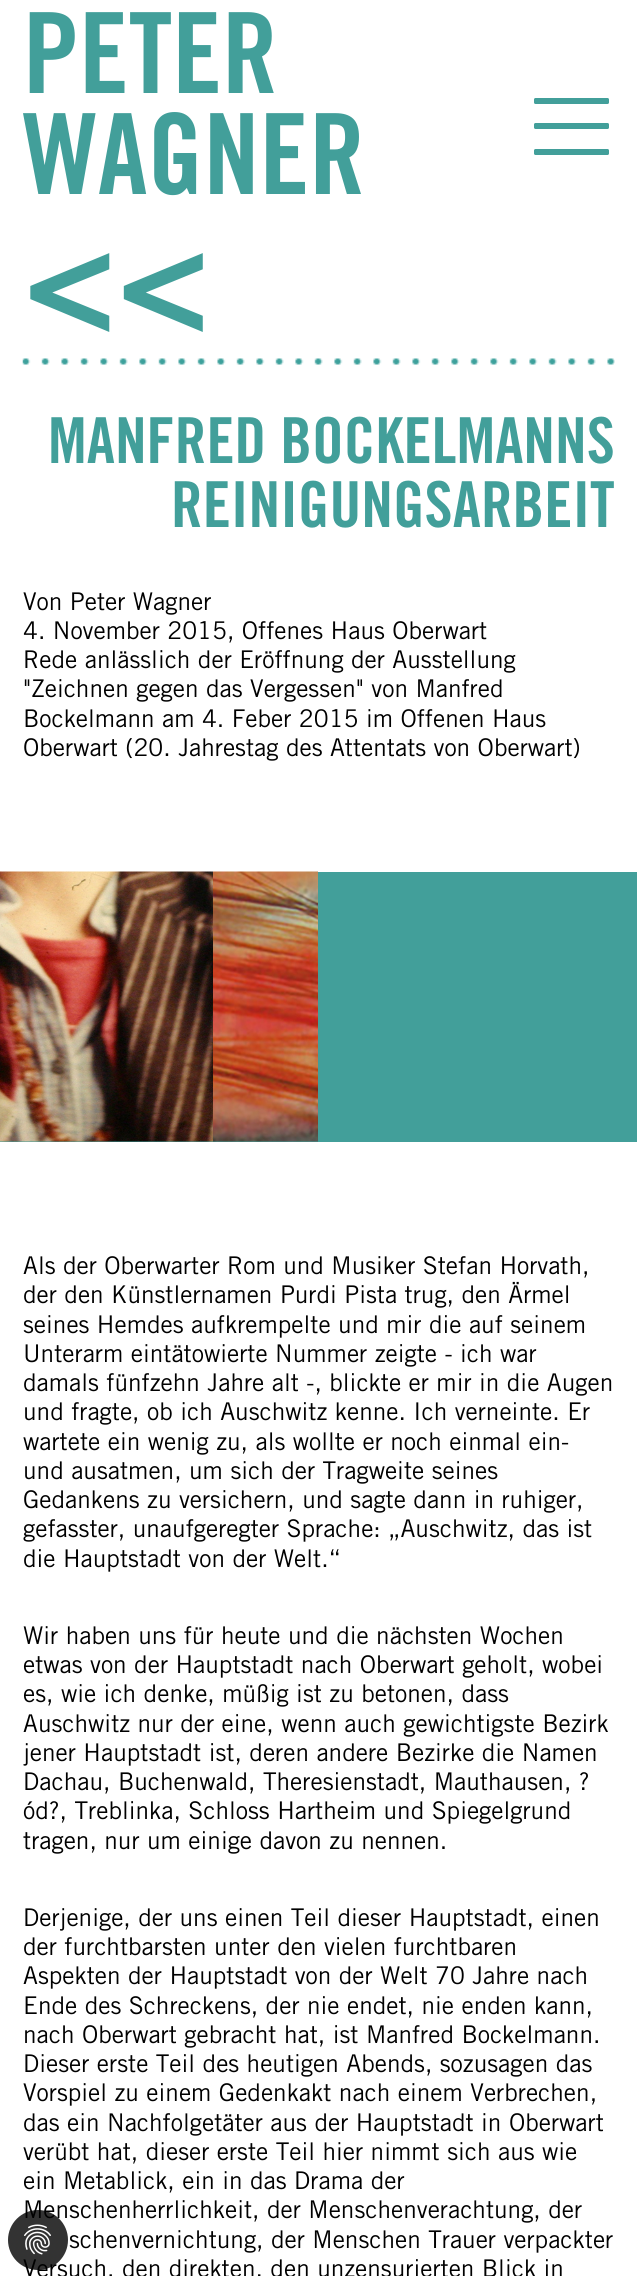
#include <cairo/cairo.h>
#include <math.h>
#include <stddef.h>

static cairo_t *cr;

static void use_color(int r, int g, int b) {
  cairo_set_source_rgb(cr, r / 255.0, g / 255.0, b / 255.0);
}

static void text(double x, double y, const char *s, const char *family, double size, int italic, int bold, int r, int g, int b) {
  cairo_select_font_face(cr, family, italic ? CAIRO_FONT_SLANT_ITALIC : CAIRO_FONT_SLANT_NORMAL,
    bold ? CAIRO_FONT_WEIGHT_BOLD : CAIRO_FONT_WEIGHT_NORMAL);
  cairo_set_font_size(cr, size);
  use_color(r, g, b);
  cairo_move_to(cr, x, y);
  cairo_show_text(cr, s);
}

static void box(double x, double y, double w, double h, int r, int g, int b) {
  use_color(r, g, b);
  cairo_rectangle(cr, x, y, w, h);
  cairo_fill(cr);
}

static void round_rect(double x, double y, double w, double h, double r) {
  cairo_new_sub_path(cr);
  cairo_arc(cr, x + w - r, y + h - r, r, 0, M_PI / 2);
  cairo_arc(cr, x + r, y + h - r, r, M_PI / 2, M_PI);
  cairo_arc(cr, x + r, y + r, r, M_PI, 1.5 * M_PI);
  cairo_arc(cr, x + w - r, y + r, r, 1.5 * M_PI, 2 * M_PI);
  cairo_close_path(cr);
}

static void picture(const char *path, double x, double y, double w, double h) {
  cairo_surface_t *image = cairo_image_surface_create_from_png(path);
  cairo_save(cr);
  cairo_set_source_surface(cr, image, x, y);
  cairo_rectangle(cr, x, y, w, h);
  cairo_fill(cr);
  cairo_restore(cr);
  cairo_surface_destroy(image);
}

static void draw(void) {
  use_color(255, 255, 255);
  cairo_paint(cr);
  use_color(66, 159, 154);
  round_rect(534, 98, 75, 6, 1.5);
  cairo_fill(cr);
  round_rect(534, 123, 75, 6, 1.5);
  cairo_fill(cr);
  round_rect(534, 149, 75, 6, 1.5);
  cairo_fill(cr);
  picture("img_01.png", 22, 358, 593, 7);
  box(0, 872, 637, 270, 66, 159, 154);
  picture("img_02.png", 0, 871, 213, 271);
  picture("img_03.png", 213, 871, 105, 271);
  text(23, 93, "PETER", "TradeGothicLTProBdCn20", 112, 0, 0, 66, 159, 154);
  text(23, 194, "WAGNER", "TradeGothicLTProBdCn20", 112, 0, 0, 66, 159, 154);
  text(23, 332, "<<", "TradeGothicLTProBdCn20", 156, 0, 0, 66, 159, 154);
  text(48, 463, "MANFRED BOCKELMANNS", "TradeGothicLTProBdCn20", 63.4, 0, 0, 66, 159, 154);
  text(171, 527, "REINIGUNGSARBEIT", "TradeGothicLTProBdCn20", 63.4, 0, 0, 66, 159, 154);
  text(23, 610, "Von Peter Wagner", "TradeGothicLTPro", 24.4, 0, 0, 0, 0, 0);
  text(23, 639, "4. November 2015, Offenes Haus Oberwart", "TradeGothicLTPro", 24.4, 0, 0, 0, 0, 0);
  text(23, 668, "Rede anlässlich der Eröffnung der Ausstellung", "TradeGothicLTPro", 24.4, 0, 0, 0, 0, 0);
  text(23, 697, "\"Zeichnen gegen das Vergessen\" von Manfred", "TradeGothicLTPro", 24.4, 0, 0, 0, 0, 0);
  text(23, 727, "Bockelmann am 4. Feber 2015 im Offenen Haus", "TradeGothicLTPro", 24.4, 0, 0, 0, 0, 0);
  text(23, 756, "Oberwart (20. Jahrestag des Attentats von Oberwart)", "TradeGothicLTPro", 24.4, 0, 0, 0, 0, 0);
  text(23, 1274, "Als der Oberwarter Rom und Musiker Stefan Horvath,", "TradeGothicLTPro", 24.4, 0, 0, 0, 0, 0);
  text(23, 1303, "der den Künstlernamen Purdi Pista trug, den Ärmel", "TradeGothicLTPro", 24.4, 0, 0, 0, 0, 0);
  text(23, 1333, "seines Hemdes aufkrempelte und mir die auf seinem", "TradeGothicLTPro", 24.4, 0, 0, 0, 0, 0);
  text(23, 1362, "Unterarm eintätowierte Nummer zeigte - ich war", "TradeGothicLTPro", 24.4, 0, 0, 0, 0, 0);
  text(23, 1391, "damals fünfzehn Jahre alt -, blickte er mir in die Augen", "TradeGothicLTPro", 24.4, 0, 0, 0, 0, 0);
  text(23, 1420, "und fragte, ob ich Auschwitz kenne. Ich verneinte. Er", "TradeGothicLTPro", 24.4, 0, 0, 0, 0, 0);
  text(23, 1450, "wartete ein wenig zu, als wollte er noch einmal ein-", "TradeGothicLTPro", 24.4, 0, 0, 0, 0, 0);
  text(23, 1479, "und ausatmen, um sich der Tragweite seines", "TradeGothicLTPro", 24.4, 0, 0, 0, 0, 0);
  text(23, 1508, "Gedankens zu versichern, und sagte dann in ruhiger,", "TradeGothicLTPro", 24.4, 0, 0, 0, 0, 0);
  text(23, 1537, "gefasster, unaufgeregter Sprache: „Auschwitz, das ist", "TradeGothicLTPro", 24.4, 0, 0, 0, 0, 0);
  text(23, 1567, "die Hauptstadt von der Welt.“", "TradeGothicLTPro", 24.4, 0, 0, 0, 0, 0);
  text(23, 1644, "Wir haben uns für heute und die nächsten Wochen", "TradeGothicLTPro", 24.4, 0, 0, 0, 0, 0);
  text(23, 1673, "etwas von der Hauptstadt nach Oberwart geholt, wobei", "TradeGothicLTPro", 24.4, 0, 0, 0, 0, 0);
  text(23, 1702, "es, wie ich denke, müßig ist zu betonen, dass", "TradeGothicLTPro", 24.4, 0, 0, 0, 0, 0);
  text(23, 1732, "Auschwitz nur der eine, wenn auch gewichtigste Bezirk", "TradeGothicLTPro", 24.4, 0, 0, 0, 0, 0);
  text(23, 1761, "jener Hauptstadt ist, deren andere Bezirke die Namen", "TradeGothicLTPro", 24.4, 0, 0, 0, 0, 0);
  text(23, 1790, "Dachau, Buchenwald, Theresienstadt, Mauthausen, ?", "TradeGothicLTPro", 24.4, 0, 0, 0, 0, 0);
  text(23, 1819, "ód?, Treblinka, Schloss Hartheim und Spiegelgrund", "TradeGothicLTPro", 24.4, 0, 0, 0, 0, 0);
  text(23, 1849, "tragen, nur um einige davon zu nennen.", "TradeGothicLTPro", 24.4, 0, 0, 0, 0, 0);
  text(23, 1926, "Derjenige, der uns einen Teil dieser Hauptstadt, einen", "TradeGothicLTPro", 24.4, 0, 0, 0, 0, 0);
  text(23, 1955, "der furchtbarsten unter den vielen furchtbaren", "TradeGothicLTPro", 24.4, 0, 0, 0, 0, 0);
  text(23, 1984, "Aspekten der Hauptstadt von der Welt 70 Jahre nach", "TradeGothicLTPro", 24.4, 0, 0, 0, 0, 0);
  text(23, 2014, "Ende des Schreckens, der nie endet, nie enden kann,", "TradeGothicLTPro", 24.4, 0, 0, 0, 0, 0);
  text(23, 2043, "nach Oberwart gebracht hat, ist Manfred Bockelmann.", "TradeGothicLTPro", 24.4, 0, 0, 0, 0, 0);
  text(23, 2072, "Dieser erste Teil des heutigen Abends, sozusagen das", "TradeGothicLTPro", 24.4, 0, 0, 0, 0, 0);
  text(23, 2101, "Vorspiel zu einem Gedenkakt nach einem Verbrechen,", "TradeGothicLTPro", 24.4, 0, 0, 0, 0, 0);
  text(23, 2131, "das ein Nachfolgetäter aus der Hauptstadt in Oberwart", "TradeGothicLTPro", 24.4, 0, 0, 0, 0, 0);
  text(23, 2160, "verübt hat, dieser erste Teil hier nimmt sich aus wie", "TradeGothicLTPro", 24.4, 0, 0, 0, 0, 0);
  text(23, 2189, "ein Metablick, ein in das Drama der", "TradeGothicLTPro", 24.4, 0, 0, 0, 0, 0);
  text(23, 2218, "Menschenherrlichkeit, der Menschenverachtung, der", "TradeGothicLTPro", 24.4, 0, 0, 0, 0, 0);
  text(69, 2248, "schenvernichtung, der Menschen Trauer verpackter", "TradeGothicLTPro", 24.4, 0, 0, 0, 0, 0);
  text(23, 2277, "Versuch, den direkten, den unzensurierten Blick in", "TradeGothicLTPro", 24.4, 0, 0, 0, 0, 0);
  cairo_set_source_rgba(cr, 0, 0, 0, 0.8);
  cairo_new_path(cr);
  cairo_arc(cr, 38, 2240, 30, 0, 2 * M_PI);
  cairo_fill(cr);
  picture("img_04.png", 24, 2224, 27, 31);
}

int main(void) {
  cairo_surface_t *surface = cairo_image_surface_create(CAIRO_FORMAT_RGB24, 637, 2276);
  cr = cairo_create(surface);
  cairo_font_options_t *options = cairo_font_options_create();
  cairo_font_options_set_hint_metrics(options, CAIRO_HINT_METRICS_OFF);
  cairo_font_options_set_hint_style(options, CAIRO_HINT_STYLE_NONE);
  cairo_set_font_options(cr, options);
  cairo_set_miter_limit(cr, 4);
  draw();
  cairo_surface_write_to_png(surface, "out.png");
  cairo_font_options_destroy(options);
  cairo_destroy(cr);
  cairo_surface_destroy(surface);
  return 0;
}
